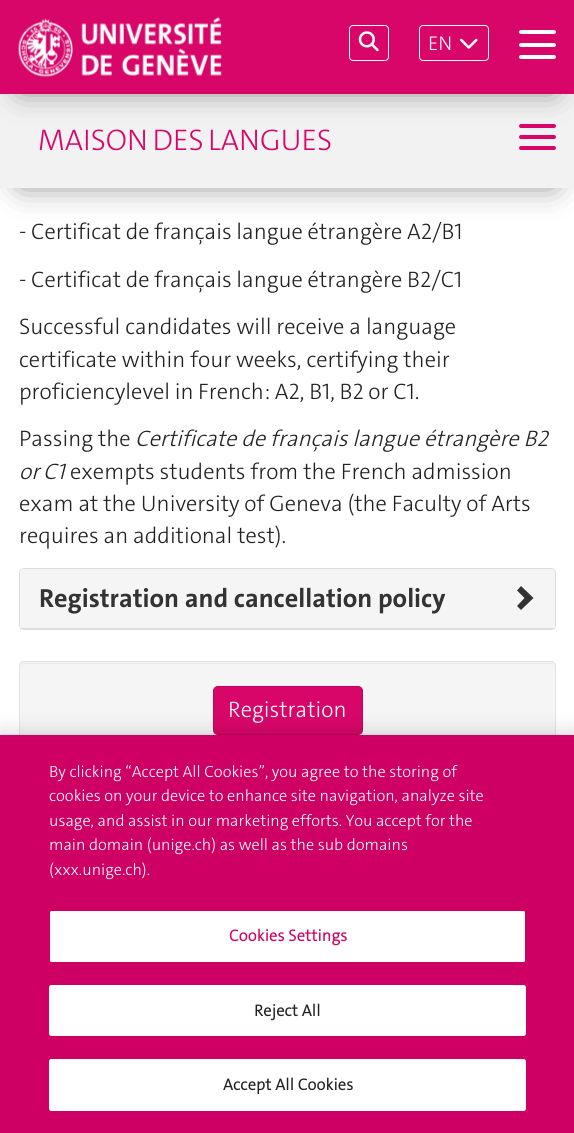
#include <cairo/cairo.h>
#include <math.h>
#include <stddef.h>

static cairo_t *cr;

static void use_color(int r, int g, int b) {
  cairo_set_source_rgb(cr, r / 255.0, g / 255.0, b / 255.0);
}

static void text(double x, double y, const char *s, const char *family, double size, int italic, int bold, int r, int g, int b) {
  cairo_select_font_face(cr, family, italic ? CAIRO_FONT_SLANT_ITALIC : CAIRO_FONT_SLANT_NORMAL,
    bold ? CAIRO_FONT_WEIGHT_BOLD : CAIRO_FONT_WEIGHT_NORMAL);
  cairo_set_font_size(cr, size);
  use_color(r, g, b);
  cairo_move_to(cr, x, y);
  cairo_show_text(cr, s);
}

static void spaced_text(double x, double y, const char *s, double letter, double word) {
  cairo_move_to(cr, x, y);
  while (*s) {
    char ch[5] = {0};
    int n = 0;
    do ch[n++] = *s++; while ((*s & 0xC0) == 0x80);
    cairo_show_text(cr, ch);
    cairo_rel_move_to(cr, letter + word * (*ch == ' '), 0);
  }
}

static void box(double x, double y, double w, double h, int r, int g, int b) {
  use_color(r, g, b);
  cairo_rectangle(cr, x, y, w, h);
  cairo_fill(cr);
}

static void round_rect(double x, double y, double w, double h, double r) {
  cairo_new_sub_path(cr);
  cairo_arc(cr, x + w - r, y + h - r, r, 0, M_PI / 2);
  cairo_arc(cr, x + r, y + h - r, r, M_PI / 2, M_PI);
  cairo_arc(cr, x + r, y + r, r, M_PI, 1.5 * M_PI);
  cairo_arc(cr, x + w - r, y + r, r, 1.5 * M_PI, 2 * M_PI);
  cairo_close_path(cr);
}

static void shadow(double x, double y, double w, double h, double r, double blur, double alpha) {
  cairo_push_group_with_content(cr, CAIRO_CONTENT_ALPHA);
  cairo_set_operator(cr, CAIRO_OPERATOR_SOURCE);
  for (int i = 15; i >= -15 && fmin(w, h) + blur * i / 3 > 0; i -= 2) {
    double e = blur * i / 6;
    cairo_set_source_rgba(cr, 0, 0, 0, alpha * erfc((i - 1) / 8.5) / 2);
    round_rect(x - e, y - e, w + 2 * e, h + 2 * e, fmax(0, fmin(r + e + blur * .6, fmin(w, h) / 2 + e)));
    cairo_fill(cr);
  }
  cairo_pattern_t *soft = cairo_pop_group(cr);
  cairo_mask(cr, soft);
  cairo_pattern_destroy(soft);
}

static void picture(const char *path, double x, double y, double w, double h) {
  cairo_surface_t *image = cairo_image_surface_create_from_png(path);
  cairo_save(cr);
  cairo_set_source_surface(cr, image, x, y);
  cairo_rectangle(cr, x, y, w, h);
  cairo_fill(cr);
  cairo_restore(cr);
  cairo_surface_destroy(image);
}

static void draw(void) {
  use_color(255, 255, 255);
  cairo_paint(cr);
  use_color(0, 0, 0);
  shadow(21, 131, 533, 53, 0, 16, 0.5);
  box(0, 94, 574, 94, 242, 242, 242);
  use_color(216, 6, 105);
  round_rect(519, 135, 37, 4, 2);
  cairo_fill(cr);
  round_rect(519, 124, 37, 4, 2);
  cairo_fill(cr);
  use_color(0, 0, 0);
  shadow(21, 38, 533, 51, 0, 16, 0.5);
  box(0, 0, 574, 94, 216, 6, 105);
  picture("img_01.png", 18, 17, 204, 60);
  round_rect(349.5, 25.5, 39, 35, 3.5);
  use_color(255, 255, 255);
  cairo_set_line_width(cr, 1);
  cairo_stroke(cr);
  picture("img_02.png", 358, 31, 21, 21);
  round_rect(419.5, 25.5, 69, 35, 3.5);
  cairo_stroke(cr);
  picture("img_03.png", 460, 38, 18, 11);
  round_rect(519, 30, 37, 4, 2);
  cairo_fill(cr);
  round_rect(519, 43, 37, 4, 2);
  cairo_fill(cr);
  round_rect(519, 55, 37, 4, 2);
  cairo_fill(cr);
  use_color(216, 6, 105);
  round_rect(519, 146, 37, 4, 2);
  cairo_fill(cr);
  round_rect(19.5, 568.5, 536, 61, 4.5);
  use_color(221, 221, 221);
  cairo_stroke(cr);
  use_color(245, 245, 245);
  cairo_new_path(cr);
  cairo_move_to(cr, 24, 569);
  cairo_line_to(cr, 551, 569);
  cairo_curve_to(cr, 553, 569, 555, 571, 555, 573);
  cairo_line_to(cr, 555, 629);
  cairo_line_to(cr, 20, 629);
  cairo_line_to(cr, 20, 573);
  cairo_curve_to(cr, 20, 571, 22, 569, 24, 569);
  cairo_close_path(cr);
  cairo_fill(cr);
  box(20, 628, 535, 1, 221, 221, 221);
  use_color(51, 51, 51);
  cairo_new_path(cr);
  cairo_move_to(cr, 533.5, 598);
  cairo_line_to(cr, 521, 610);
  cairo_line_to(cr, 517, 606);
  cairo_line_to(cr, 524.5, 598);
  cairo_line_to(cr, 517, 590.5);
  cairo_line_to(cr, 521, 586);
  cairo_close_path(cr);
  cairo_fill(cr);
  use_color(245, 245, 245);
  round_rect(19, 661, 537, 115, 5);
  cairo_fill(cr);
  use_color(233, 233, 233);
  cairo_new_path(cr);
  cairo_move_to(cr, 24, 664);
  cairo_line_to(cr, 551, 664);
  cairo_curve_to(cr, 553, 664, 555, 665, 555, 668);
  cairo_line_to(cr, 555, 667);
  cairo_curve_to(cr, 555, 665, 553, 663, 551, 663);
  cairo_line_to(cr, 24, 663);
  cairo_curve_to(cr, 22, 663, 20, 665, 20, 667);
  cairo_line_to(cr, 20, 668);
  cairo_curve_to(cr, 20, 665, 22, 664, 24, 664);
  cairo_close_path(cr);
  cairo_fill(cr);
  round_rect(19.5, 661.5, 536, 114, 4.5);
  use_color(227, 227, 227);
  cairo_stroke(cr);
  use_color(216, 6, 105);
  round_rect(213.5, 686.5, 149, 48, 4.5);
  cairo_fill_preserve(cr);
  use_color(191, 5, 93);
  cairo_stroke(cr);
  use_color(0, 0, 0);
  shadow(0, 735, 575, 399, 0, 11, 0.2);
  box(0, 735, 574, 398, 207, 0, 99);
  use_color(255, 255, 255);
  round_rect(49.5, 910.5, 476, 52, 2);
  cairo_fill_preserve(cr);
  use_color(207, 0, 99);
  cairo_stroke(cr);
  use_color(255, 255, 255);
  round_rect(49.5, 985.5, 476, 50, 2);
  cairo_fill_preserve(cr);
  cairo_stroke(cr);
  round_rect(49.5, 1059.5, 476, 51, 2);
  cairo_fill_preserve(cr);
  cairo_stroke(cr);
  text(428, 50, "EN", "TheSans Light", 20, 0, 0, 255, 255, 255);
  cairo_set_font_size(cr, 30);
  use_color(216, 6, 105);
  spaced_text(38, 150, "MAISON DES LANGUES", 0, -2);
  cairo_set_font_size(cr, 22.5);
  use_color(34, 34, 34);
  spaced_text(19, 239, "- Certificat de français langue étrangère A2/B1", 0, -0.25);
  spaced_text(19, 287, "- Certificat de français langue étrangère B2/C1", 0, -0.25);
  text(19, 334, "Successful candidates will receive a language", "TheSans Light", 22.5, 0, 0, 34, 34, 34);
  text(19, 367, "certificate within four weeks, certifying their", "TheSans Light", 22.5, 0, 0, 34, 34, 34);
  spaced_text(19, 399, "proficiencylevel in French: A2, B1, B2 or C1.", 0, -0.25);
  text(19, 446, "Passing the", "TheSans Light", 22.5, 0, 0, 34, 34, 34);
  text(135, 446, "Certificate de français langue étrangère B2", "TheSans Light", 22.5, 1, 0, 34, 34, 34);
  spaced_text(19, 479, "or C1", 0, -1);
  text(70, 479, "exempts students from the French admission", "TheSans Light", 22.5, 0, 0, 34, 34, 34);
  text(19, 511, "exam at the University of Geneva (the Faculty of Arts", "TheSans Light", 22.5, 0, 0, 34, 34, 34);
  text(19, 543, "requires an additional test).", "TheSans Light", 22.5, 0, 0, 34, 34, 34);
  text(39, 607, "Registration and cancellation policy", "TheSans", 26.25, 0, 1, 51, 51, 51);
  text(228, 717, "Registration", "TheSans Light", 22.5, 0, 0, 255, 255, 255);
  text(49, 777, "By clicking “Accept All Cookies”, you agree to the storing of", "TheSans Light", 16.25, 0, 0, 255, 255, 255);
  text(49, 801, "cookies on your device to enhance site navigation, analyze site", "TheSans Light", 16.25, 0, 0, 255, 255, 255);
  text(49, 826, "usage, and assist in our marketing efforts. You accept for the", "TheSans Light", 16.25, 0, 0, 255, 255, 255);
  text(49, 850, "main domain (unige.ch) as well as the sub domains", "TheSans Light", 16.25, 0, 0, 255, 255, 255);
  text(49, 875, "(xxx.unige.ch).", "TheSans Light", 16.25, 0, 0, 255, 255, 255);
  cairo_select_font_face(cr, "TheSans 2", CAIRO_FONT_SLANT_NORMAL, CAIRO_FONT_WEIGHT_BOLD);
  use_color(207, 0, 99);
  spaced_text(229, 941, "Cookies Settings", 0.2, 0);
  use_color(34, 34, 34);
  spaced_text(254, 1016, "Reject All", 0.2, 0);
  spaced_text(223, 1090, "Accept All Cookies", 0.2, 0);
}

int main(void) {
  cairo_surface_t *surface = cairo_image_surface_create(CAIRO_FORMAT_RGB24, 574, 1133);
  cr = cairo_create(surface);
  cairo_font_options_t *options = cairo_font_options_create();
  cairo_font_options_set_hint_metrics(options, CAIRO_HINT_METRICS_OFF);
  cairo_font_options_set_hint_style(options, CAIRO_HINT_STYLE_NONE);
  cairo_set_font_options(cr, options);
  cairo_set_miter_limit(cr, 4);
  draw();
  cairo_surface_write_to_png(surface, "out.png");
  cairo_font_options_destroy(options);
  cairo_destroy(cr);
  cairo_surface_destroy(surface);
  return 0;
}
